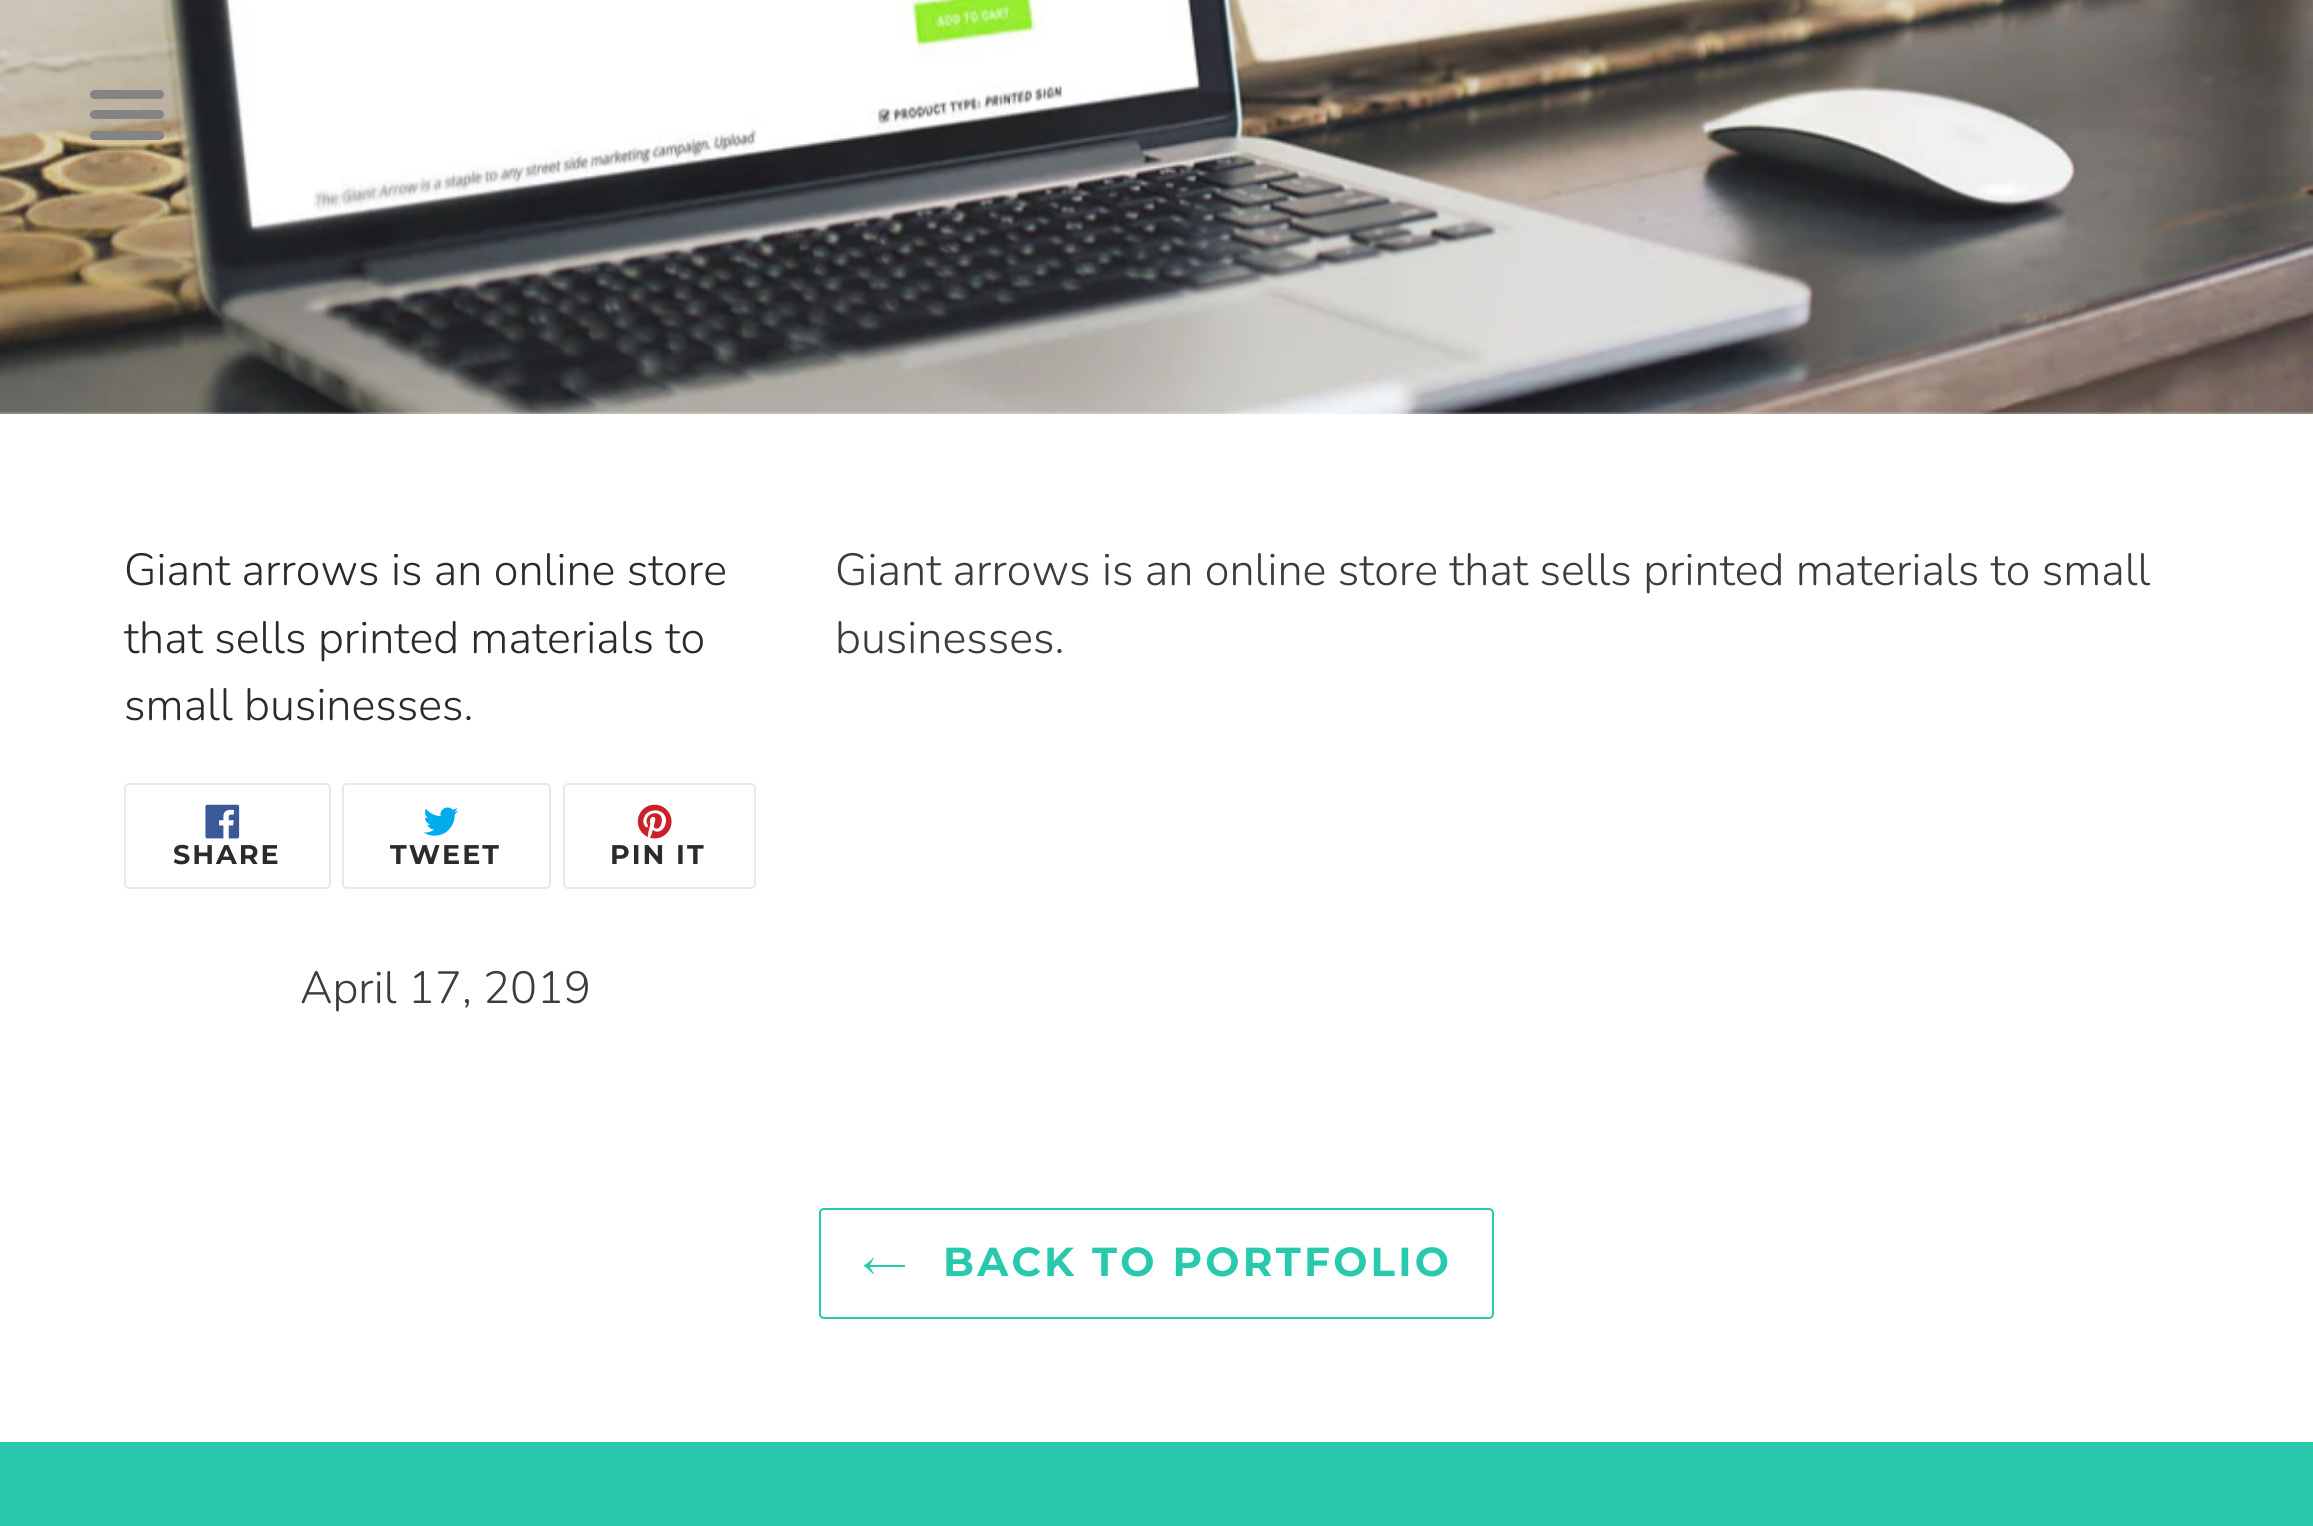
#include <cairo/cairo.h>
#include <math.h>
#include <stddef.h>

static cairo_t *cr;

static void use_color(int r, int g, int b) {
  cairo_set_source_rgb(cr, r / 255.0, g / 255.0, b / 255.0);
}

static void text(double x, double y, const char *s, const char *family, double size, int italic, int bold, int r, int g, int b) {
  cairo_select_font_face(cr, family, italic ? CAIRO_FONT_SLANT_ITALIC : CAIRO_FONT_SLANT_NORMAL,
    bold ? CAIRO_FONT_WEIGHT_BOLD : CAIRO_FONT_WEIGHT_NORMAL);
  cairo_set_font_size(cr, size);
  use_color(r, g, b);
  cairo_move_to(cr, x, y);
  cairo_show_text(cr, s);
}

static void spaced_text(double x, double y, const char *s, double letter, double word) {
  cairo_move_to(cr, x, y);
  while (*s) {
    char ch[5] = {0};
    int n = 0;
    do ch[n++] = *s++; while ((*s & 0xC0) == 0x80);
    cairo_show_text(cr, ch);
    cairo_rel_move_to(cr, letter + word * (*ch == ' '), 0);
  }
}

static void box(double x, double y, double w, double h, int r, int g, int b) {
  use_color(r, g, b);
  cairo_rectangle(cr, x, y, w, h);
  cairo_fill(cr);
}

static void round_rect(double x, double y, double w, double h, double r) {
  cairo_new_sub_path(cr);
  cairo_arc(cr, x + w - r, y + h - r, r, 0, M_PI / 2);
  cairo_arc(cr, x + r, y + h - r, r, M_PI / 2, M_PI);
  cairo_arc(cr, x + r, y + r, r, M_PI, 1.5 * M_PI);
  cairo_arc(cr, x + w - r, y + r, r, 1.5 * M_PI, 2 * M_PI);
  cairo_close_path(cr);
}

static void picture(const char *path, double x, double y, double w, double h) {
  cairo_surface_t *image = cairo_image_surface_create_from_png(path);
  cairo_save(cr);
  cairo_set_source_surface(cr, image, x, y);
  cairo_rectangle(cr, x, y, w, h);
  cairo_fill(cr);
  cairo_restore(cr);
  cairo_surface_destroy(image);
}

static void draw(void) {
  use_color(255, 255, 255);
  cairo_paint(cr);
  picture("img_01.png", 0, 0, 2313, 414);
  use_color(132, 132, 132);
  round_rect(90, 90, 74, 9, 4.5);
  cairo_fill(cr);
  round_rect(90, 110, 74, 9, 4.5);
  cairo_fill(cr);
  round_rect(90, 131, 74, 9, 4.5);
  cairo_fill(cr);
  round_rect(125, 784, 205, 104, 4);
  use_color(232, 233, 235);
  cairo_stroke(cr);
  picture("img_02.png", 205, 804, 35, 35);
  round_rect(343, 784, 207, 104, 4);
  cairo_stroke(cr);
  picture("img_03.png", 423, 807, 35, 29);
  round_rect(564, 784, 191, 104, 4);
  cairo_stroke(cr);
  picture("img_04.png", 637, 804, 35, 35);
  round_rect(820, 1209, 673, 109, 4);
  use_color(40, 201, 173);
  cairo_stroke(cr);
  cairo_set_fill_rule(cr, CAIRO_FILL_RULE_EVEN_ODD);
  cairo_new_path(cr);
  cairo_move_to(cr, 873, 1274);
  cairo_curve_to(cr, 870, 1271, 867, 1268, 864, 1266);
  cairo_line_to(cr, 864, 1265);
  cairo_curve_to(cr, 867, 1264, 870, 1261, 873, 1258);
  cairo_line_to(cr, 874, 1258);
  cairo_line_to(cr, 870, 1265);
  cairo_line_to(cr, 905, 1265);
  cairo_line_to(cr, 905, 1267);
  cairo_line_to(cr, 870, 1267);
  cairo_line_to(cr, 874, 1274);
  cairo_close_path(cr);
  cairo_fill(cr);
  box(0, 1442, 2313, 84, 40, 201, 173);
  text(124, 585, "Giant arrows is an online store", "Nunito Light", 45, 0, 0, 43, 43, 43);
  text(124, 653, "that sells printed materials to", "Nunito Light", 45, 0, 0, 43, 43, 43);
  text(124, 720, "small businesses.", "Nunito Light", 45, 0, 0, 43, 43, 43);
  cairo_select_font_face(cr, "Montserrat", CAIRO_FONT_SLANT_NORMAL, CAIRO_FONT_WEIGHT_BOLD);
  cairo_set_font_size(cr, 27);
  spaced_text(173, 864, "SHARE", 2, 0);
  spaced_text(390, 864, "TWEET", 2, 0);
  spaced_text(610, 864, "PIN IT", 2, 0);
  text(300, 1003, "April 17, 2019", "Nunito Light", 45, 0, 0, 60, 60, 60);
  text(835, 585, "Giant arrows is an online store that sells printed materials to small", "Nunito Light", 45, 0, 0, 60, 60, 60);
  text(835, 653, "businesses.", "Nunito Light", 45, 0, 0, 60, 60, 60);
  cairo_select_font_face(cr, "Montserrat", CAIRO_FONT_SLANT_NORMAL, CAIRO_FONT_WEIGHT_BOLD);
  cairo_set_font_size(cr, 40.5);
  use_color(40, 201, 173);
  spaced_text(943, 1276, "BACK TO PORTFOLIO", 3.25, 0);
}

int main(void) {
  cairo_surface_t *surface = cairo_image_surface_create(CAIRO_FORMAT_RGB24, 2313, 1526);
  cr = cairo_create(surface);
  cairo_font_options_t *options = cairo_font_options_create();
  cairo_font_options_set_hint_metrics(options, CAIRO_HINT_METRICS_OFF);
  cairo_font_options_set_hint_style(options, CAIRO_HINT_STYLE_NONE);
  cairo_set_font_options(cr, options);
  cairo_set_miter_limit(cr, 4);
  draw();
  cairo_surface_write_to_png(surface, "out.png");
  cairo_font_options_destroy(options);
  cairo_destroy(cr);
  cairo_surface_destroy(surface);
  return 0;
}
